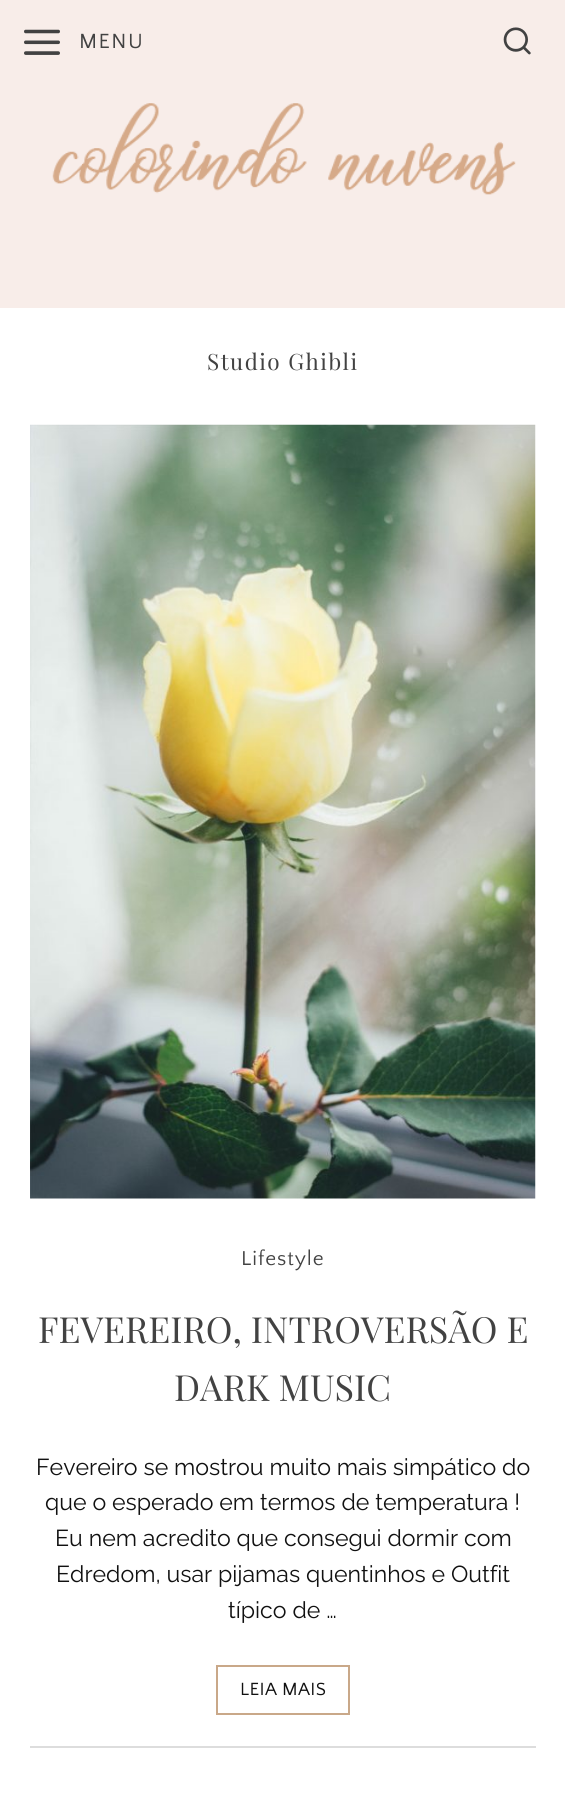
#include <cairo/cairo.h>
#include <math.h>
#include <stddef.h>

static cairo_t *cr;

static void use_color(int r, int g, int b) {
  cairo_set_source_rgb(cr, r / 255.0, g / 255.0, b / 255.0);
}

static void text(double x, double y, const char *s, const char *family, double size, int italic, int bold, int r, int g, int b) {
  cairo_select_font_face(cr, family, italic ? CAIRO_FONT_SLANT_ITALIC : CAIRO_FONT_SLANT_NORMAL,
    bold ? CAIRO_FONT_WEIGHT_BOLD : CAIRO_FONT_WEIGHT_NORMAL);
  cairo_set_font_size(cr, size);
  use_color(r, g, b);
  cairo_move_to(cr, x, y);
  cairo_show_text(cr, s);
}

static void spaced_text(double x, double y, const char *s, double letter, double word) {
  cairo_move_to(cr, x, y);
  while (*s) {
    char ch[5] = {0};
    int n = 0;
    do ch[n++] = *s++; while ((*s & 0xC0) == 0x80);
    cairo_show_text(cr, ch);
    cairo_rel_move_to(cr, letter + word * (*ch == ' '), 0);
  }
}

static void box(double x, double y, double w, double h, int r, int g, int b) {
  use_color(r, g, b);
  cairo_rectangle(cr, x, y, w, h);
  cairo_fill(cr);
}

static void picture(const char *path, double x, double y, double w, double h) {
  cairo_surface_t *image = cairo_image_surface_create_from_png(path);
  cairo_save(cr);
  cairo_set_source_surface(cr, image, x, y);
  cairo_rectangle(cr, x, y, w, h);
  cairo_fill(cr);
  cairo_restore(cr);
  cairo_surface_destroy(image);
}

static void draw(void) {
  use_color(255, 255, 255);
  cairo_paint(cr);
  box(0, 0, 565, 308, 248, 237, 233);
  picture("img_01.png", 24, 29, 36, 26);
  picture("img_02.png", 503, 27, 28, 28);
  picture("img_03.png", 52, 103, 464, 92);
  picture("img_04.png", 30, 424, 506, 775);
  box(30, 1746, 506, 2, 221, 221, 221);
  cairo_rectangle(cr, 217, 1666, 132, 48);
  use_color(201, 168, 137);
  cairo_stroke(cr);
  cairo_select_font_face(cr, "Quattrocento Sans", CAIRO_FONT_SLANT_NORMAL, CAIRO_FONT_WEIGHT_NORMAL);
  cairo_set_font_size(cr, 21.5);
  use_color(66, 66, 66);
  spaced_text(79, 48, "MENU", 1.5, 0);
  cairo_select_font_face(cr, "Playfair Display", CAIRO_FONT_SLANT_NORMAL, CAIRO_FONT_WEIGHT_NORMAL);
  cairo_set_font_size(cr, 22.5);
  spaced_text(207, 370, "Studio Ghibli", 1.5, 0);
  cairo_select_font_face(cr, "Quattrocento Sans", CAIRO_FONT_SLANT_NORMAL, CAIRO_FONT_WEIGHT_NORMAL);
  cairo_set_font_size(cr, 21);
  spaced_text(241, 1265, "Lifestyle", 1, 0);
  text(38, 1343, "FEVEREIRO, INTROVERSÃO E", "Playfair Display", 36, 0, 0, 66, 66, 66);
  text(174, 1401, "DARK MUSIC", "Playfair Display", 36, 0, 0, 66, 66, 66);
  text(36, 1475, "Fevereiro se mostrou muito mais simpático do", "Raleway", 23.1, 0, 0, 17, 17, 17);
  text(45, 1510, "que o esperado em termos de temperatura !", "Raleway", 23.1, 0, 0, 17, 17, 17);
  text(55, 1546, "Eu nem acredito que consegui dormir com", "Raleway", 23.1, 0, 0, 17, 17, 17);
  text(56, 1582, "Edredom, usar pijamas quentinhos e Outfit", "Raleway", 23.1, 0, 0, 17, 17, 17);
  text(228, 1618, "típico de …", "Raleway", 23.1, 0, 0, 17, 17, 17);
  cairo_select_font_face(cr, "Quattrocento Sans", CAIRO_FONT_SLANT_NORMAL, CAIRO_FONT_WEIGHT_NORMAL);
  cairo_set_font_size(cr, 18.5);
  spaced_text(240, 1695, "LEIA MAIS", 0.4, 0);
}

int main(void) {
  cairo_surface_t *surface = cairo_image_surface_create(CAIRO_FORMAT_RGB24, 565, 1807);
  cr = cairo_create(surface);
  cairo_font_options_t *options = cairo_font_options_create();
  cairo_font_options_set_hint_metrics(options, CAIRO_HINT_METRICS_OFF);
  cairo_font_options_set_hint_style(options, CAIRO_HINT_STYLE_NONE);
  cairo_set_font_options(cr, options);
  cairo_set_miter_limit(cr, 4);
  draw();
  cairo_surface_write_to_png(surface, "out.png");
  cairo_font_options_destroy(options);
  cairo_destroy(cr);
  cairo_surface_destroy(surface);
  return 0;
}
